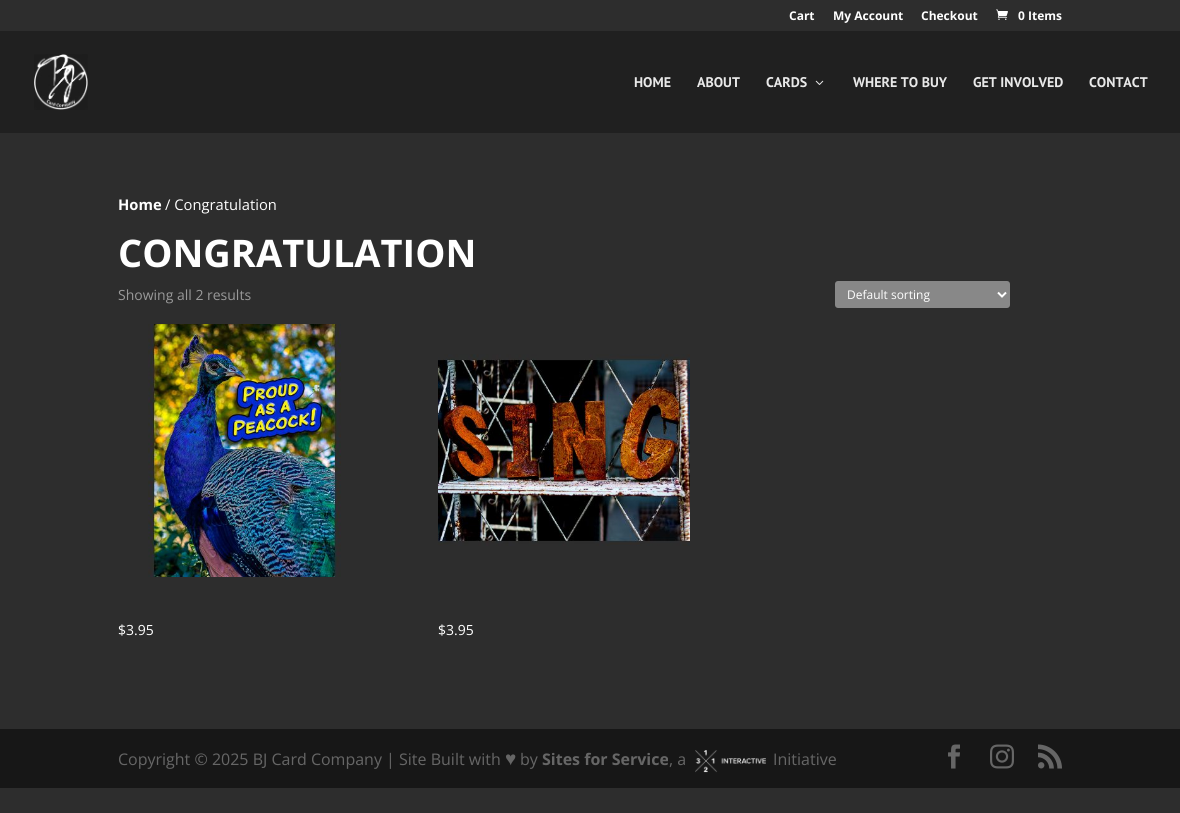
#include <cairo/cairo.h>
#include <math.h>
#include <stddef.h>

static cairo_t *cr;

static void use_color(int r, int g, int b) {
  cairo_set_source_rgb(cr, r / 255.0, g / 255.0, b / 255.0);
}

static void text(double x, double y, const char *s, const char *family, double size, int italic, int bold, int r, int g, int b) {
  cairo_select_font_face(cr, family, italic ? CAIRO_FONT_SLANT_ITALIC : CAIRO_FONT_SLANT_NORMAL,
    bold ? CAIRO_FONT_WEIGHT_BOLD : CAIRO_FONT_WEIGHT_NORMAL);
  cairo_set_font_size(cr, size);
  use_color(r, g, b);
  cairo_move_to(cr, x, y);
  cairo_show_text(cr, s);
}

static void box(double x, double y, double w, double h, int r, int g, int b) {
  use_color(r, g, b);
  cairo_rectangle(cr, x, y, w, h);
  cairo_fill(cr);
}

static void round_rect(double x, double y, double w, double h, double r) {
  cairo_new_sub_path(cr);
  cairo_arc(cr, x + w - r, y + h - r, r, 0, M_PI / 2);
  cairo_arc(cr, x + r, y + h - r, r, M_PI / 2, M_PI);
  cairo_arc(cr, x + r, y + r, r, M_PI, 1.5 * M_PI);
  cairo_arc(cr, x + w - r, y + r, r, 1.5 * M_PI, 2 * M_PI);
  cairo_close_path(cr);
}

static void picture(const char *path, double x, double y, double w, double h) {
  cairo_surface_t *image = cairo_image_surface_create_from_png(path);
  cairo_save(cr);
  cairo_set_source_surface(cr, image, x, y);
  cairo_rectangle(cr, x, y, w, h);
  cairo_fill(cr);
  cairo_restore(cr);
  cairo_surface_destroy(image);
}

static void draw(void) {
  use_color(45, 45, 45);
  cairo_paint(cr);
  picture("img_01.png", 996, 9, 12, 11);
  box(0, 31, 1180, 102, 32, 32, 32);
  picture("img_02.png", 34, 54, 54, 56);
  picture("img_03.png", 815, 80, 9, 5);
  use_color(136, 136, 136);
  round_rect(835, 281, 175, 27, 3);
  cairo_fill(cr);
  cairo_new_path(cr);
  cairo_move_to(cr, 998, 292.5);
  cairo_line_to(cr, 1002, 296.5);
  cairo_line_to(cr, 1006, 292.5);
  use_color(255, 255, 255);
  cairo_stroke(cr);
  picture("img_04.png", 148, 324, 193, 253);
  picture("img_05.png", 438, 354, 252, 192);
  box(0, 729, 1180, 59, 23, 23, 23);
  picture("img_06.png", 695, 750, 71, 23);
  picture("img_07.png", 948, 744, 12, 25);
  picture("img_08.png", 990, 744, 24, 25);
  picture("img_09.png", 1038, 744, 24, 25);
  text(789, 20, "Cart", "Open Sans", 12, 0, 1, 255, 255, 255);
  text(833, 20, "My Account", "Open Sans", 12, 0, 1, 255, 255, 255);
  text(921, 20, "Checkout", "Open Sans", 12, 0, 1, 255, 255, 255);
  text(1018, 20, "0 Items", "Open Sans", 12, 0, 1, 255, 255, 255);
  text(634, 87, "HOME", "PT Sans", 14, 0, 1, 233, 233, 233);
  text(697, 87, "ABOUT", "PT Sans", 14, 0, 1, 233, 233, 233);
  text(766, 87, "CARDS", "PT Sans", 14, 0, 1, 233, 233, 233);
  text(853, 87, "WHERE TO BUY", "PT Sans", 14, 0, 1, 233, 233, 233);
  text(973, 87, "GET INVOLVED", "PT Sans", 14, 0, 1, 233, 233, 233);
  text(1089, 87, "CONTACT", "PT Sans", 14, 0, 1, 233, 233, 233);
  text(118, 210, "Home", "Open Sans", 14.75, 0, 1, 255, 255, 255);
  text(165, 210, "/ Congratulation", "Open Sans", 14.75, 0, 0, 255, 255, 255);
  text(118, 267, "CONGRATULATION", "Open Sans", 38, 0, 1, 255, 255, 255);
  text(118, 300, "Showing all 2 results", "Open Sans", 14, 0, 0, 153, 153, 153);
  text(847, 299, "Default sorting", "Open Sans", 12, 0, 0, 255, 255, 255);
  text(118, 635, "$3.95", "Open Sans", 14, 0, 0, 255, 255, 255);
  text(438, 635, "$3.95", "Open Sans", 14, 0, 0, 255, 255, 255);
  text(118, 765, "Copyright © 2025 BJ Card Company | Site Built with", "Open Sans", 16, 0, 0, 102, 102, 102);
  text(505, 765, "♥", "Liberation Sans", 19, 0, 0, 102, 102, 102);
  text(520, 765, "by", "Open Sans", 16, 0, 0, 102, 102, 102);
  text(542, 765, "Sites for Service", "Open Sans", 16, 0, 1, 102, 102, 102);
  text(669, 765, ", a", "Open Sans", 16, 0, 0, 102, 102, 102);
  text(773, 765, "Initiative", "Open Sans", 16, 0, 0, 102, 102, 102);
}

int main(void) {
  cairo_surface_t *surface = cairo_image_surface_create(CAIRO_FORMAT_RGB24, 1180, 813);
  cr = cairo_create(surface);
  cairo_font_options_t *options = cairo_font_options_create();
  cairo_font_options_set_hint_metrics(options, CAIRO_HINT_METRICS_OFF);
  cairo_font_options_set_hint_style(options, CAIRO_HINT_STYLE_NONE);
  cairo_set_font_options(cr, options);
  cairo_set_miter_limit(cr, 4);
  draw();
  cairo_surface_write_to_png(surface, "out.png");
  cairo_font_options_destroy(options);
  cairo_destroy(cr);
  cairo_surface_destroy(surface);
  return 0;
}
